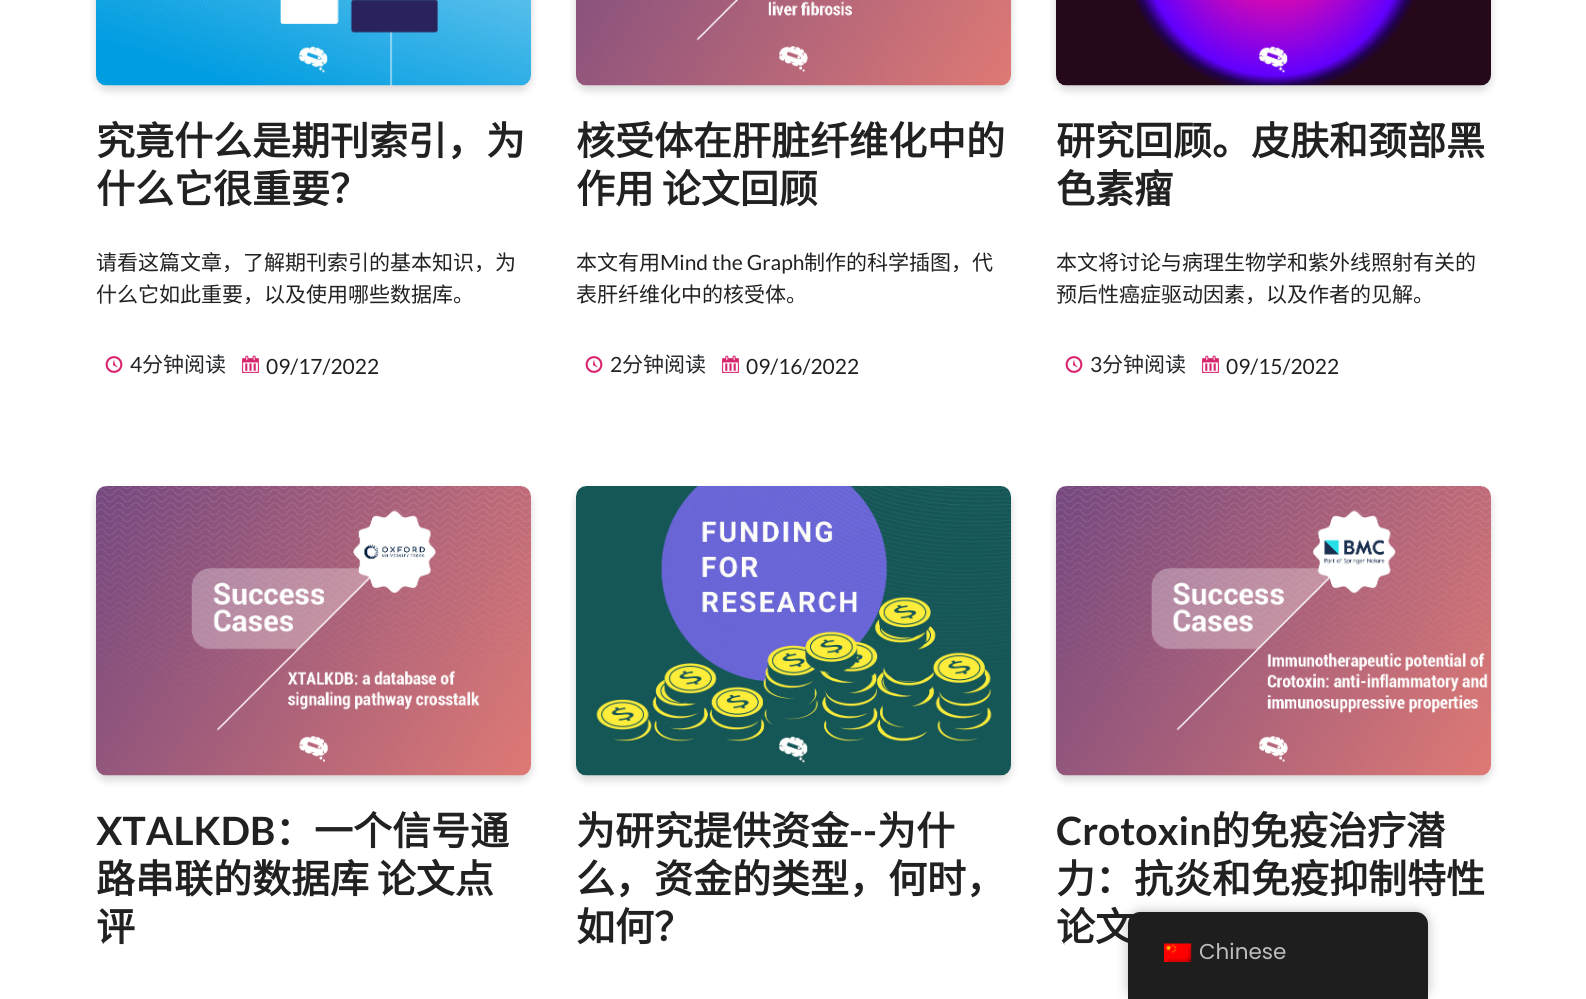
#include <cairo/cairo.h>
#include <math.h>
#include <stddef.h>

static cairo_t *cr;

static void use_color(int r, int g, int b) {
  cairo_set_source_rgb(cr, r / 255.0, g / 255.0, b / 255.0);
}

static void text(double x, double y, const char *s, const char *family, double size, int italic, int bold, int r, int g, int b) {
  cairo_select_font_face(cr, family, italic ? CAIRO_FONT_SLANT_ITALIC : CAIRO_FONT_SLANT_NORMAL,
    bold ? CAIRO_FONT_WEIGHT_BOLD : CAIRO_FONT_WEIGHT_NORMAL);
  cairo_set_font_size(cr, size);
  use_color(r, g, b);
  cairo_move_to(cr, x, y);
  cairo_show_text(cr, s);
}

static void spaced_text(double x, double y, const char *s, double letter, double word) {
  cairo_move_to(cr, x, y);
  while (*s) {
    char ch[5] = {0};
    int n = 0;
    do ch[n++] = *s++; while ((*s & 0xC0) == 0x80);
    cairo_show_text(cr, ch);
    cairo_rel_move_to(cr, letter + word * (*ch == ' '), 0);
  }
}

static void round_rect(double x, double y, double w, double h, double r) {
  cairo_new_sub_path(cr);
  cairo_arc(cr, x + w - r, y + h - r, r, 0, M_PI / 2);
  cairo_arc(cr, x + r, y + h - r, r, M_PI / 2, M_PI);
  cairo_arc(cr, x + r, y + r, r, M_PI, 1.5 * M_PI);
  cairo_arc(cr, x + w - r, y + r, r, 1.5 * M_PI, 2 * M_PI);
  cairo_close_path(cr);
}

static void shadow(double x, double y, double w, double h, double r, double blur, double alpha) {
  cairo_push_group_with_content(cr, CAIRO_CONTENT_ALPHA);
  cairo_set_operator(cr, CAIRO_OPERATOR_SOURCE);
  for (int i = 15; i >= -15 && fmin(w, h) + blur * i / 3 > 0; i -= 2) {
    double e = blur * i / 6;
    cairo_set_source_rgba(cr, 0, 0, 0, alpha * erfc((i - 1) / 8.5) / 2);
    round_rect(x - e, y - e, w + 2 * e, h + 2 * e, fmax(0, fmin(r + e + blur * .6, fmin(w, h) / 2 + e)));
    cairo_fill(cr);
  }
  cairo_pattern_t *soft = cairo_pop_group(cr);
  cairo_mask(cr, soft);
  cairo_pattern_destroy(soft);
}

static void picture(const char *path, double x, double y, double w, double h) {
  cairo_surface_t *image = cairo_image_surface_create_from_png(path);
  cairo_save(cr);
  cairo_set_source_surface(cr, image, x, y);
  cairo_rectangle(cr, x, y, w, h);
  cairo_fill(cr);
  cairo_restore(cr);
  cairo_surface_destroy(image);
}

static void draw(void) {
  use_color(255, 255, 255);
  cairo_paint(cr);
  use_color(0, 0, 0);
  shadow(96, -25, 435, 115, 11, 4.5, 0.16);
  picture("img_01.png", 96, 0, 435, 86);
  picture("img_02.png", 105, 356, 18, 17);
  picture("img_03.png", 242, 355, 17, 18);
  shadow(576, -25, 435, 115, 11, 4.5, 0.16);
  picture("img_04.png", 576, 0, 435, 86);
  picture("img_02.png", 585, 356, 18, 17);
  picture("img_03.png", 722, 355, 17, 18);
  shadow(1056, -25, 435, 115, 11, 4.5, 0.16);
  picture("img_05.png", 1056, 0, 435, 86);
  picture("img_02.png", 1065, 356, 18, 17);
  picture("img_03.png", 1202, 355, 17, 18);
  shadow(96, 491, 435, 289, 11, 4.5, 0.16);
  picture("img_06.png", 96, 486, 435, 290);
  shadow(576, 491, 435, 289, 11, 4.5, 0.16);
  picture("img_07.png", 576, 486, 435, 290);
  shadow(1056, 491, 435, 289, 11, 4.5, 0.16);
  picture("img_08.png", 1056, 486, 435, 290);
  shadow(1128, 912, 300, 87, 12, 6, 0.25);
  text(96, 155, "究竟什么是期刊索引，为", "Noto Sans CJK SC", 39, 0, 1, 33, 33, 33);
  text(96, 203, "什么它很重要？", "Noto Sans CJK SC", 39, 0, 1, 33, 33, 33);
  text(96, 270, "请看这篇文章，了解期刊索引的基本知识，为", "Noto Sans CJK SC", 21, 0, 0, 33, 33, 33);
  text(96, 302, "什么它如此重要，以及使用哪些数据库。", "Noto Sans CJK SC", 21, 0, 0, 33, 33, 33);
  text(130, 372, "4", "Lato", 21, 0, 0, 33, 37, 41);
  text(142, 372, "分钟阅读", "Noto Sans CJK SC", 21, 0, 0, 33, 37, 41);
  text(266, 374, "09/17/2022", "Lato", 21, 0, 0, 33, 33, 33);
  text(576, 155, "核受体在肝脏纤维化中的", "Noto Sans CJK SC", 39, 0, 1, 33, 33, 33);
  spaced_text(576, 203, "作用 论文回顾", 0, -1);
  text(576, 270, "本文有用", "Noto Sans CJK SC", 21, 0, 0, 33, 33, 33);
  text(660, 270, "Mind the Graph", "Lato", 21, 0, 0, 33, 33, 33);
  text(804, 270, "制作的科学插图，代", "Noto Sans CJK SC", 21, 0, 0, 33, 33, 33);
  text(576, 302, "表肝纤维化中的核受体。", "Noto Sans CJK SC", 21, 0, 0, 33, 33, 33);
  text(610, 372, "2", "Lato", 21, 0, 0, 33, 37, 41);
  text(622, 372, "分钟阅读", "Noto Sans CJK SC", 21, 0, 0, 33, 37, 41);
  text(746, 374, "09/16/2022", "Lato", 21, 0, 0, 33, 33, 33);
  text(1056, 155, "研究回顾。皮肤和颈部黑", "Noto Sans CJK SC", 39, 0, 1, 33, 33, 33);
  text(1056, 203, "色素瘤", "Noto Sans CJK SC", 39, 0, 1, 33, 33, 33);
  text(1056, 270, "本文将讨论与病理生物学和紫外线照射有关的", "Noto Sans CJK SC", 21, 0, 0, 33, 33, 33);
  text(1056, 302, "预后性癌症驱动因素，以及作者的见解。", "Noto Sans CJK SC", 21, 0, 0, 33, 33, 33);
  text(1090, 372, "3", "Lato", 21, 0, 0, 33, 37, 41);
  text(1102, 372, "分钟阅读", "Noto Sans CJK SC", 21, 0, 0, 33, 37, 41);
  text(1226, 374, "09/15/2022", "Lato", 21, 0, 0, 33, 33, 33);
  text(96, 845, "XTALKDB", "Lato", 39, 0, 1, 33, 33, 33);
  text(275, 845, "：一个信号通", "Noto Sans CJK SC", 39, 0, 1, 33, 33, 33);
  spaced_text(96, 893, "路串联的数据库 论文点", 0, -1);
  text(96, 941, "评", "Noto Sans CJK SC", 39, 0, 1, 33, 33, 33);
  text(576, 845, "为研究提供资金", "Noto Sans CJK SC", 39, 0, 1, 33, 33, 33);
  text(849, 845, "--", "Lato", 39, 0, 1, 33, 33, 33);
  text(877, 845, "为什", "Noto Sans CJK SC", 39, 0, 1, 33, 33, 33);
  text(576, 893, "么，资金的类型，何时，", "Noto Sans CJK SC", 39, 0, 1, 33, 33, 33);
  text(576, 941, "如何？", "Noto Sans CJK SC", 39, 0, 1, 33, 33, 33);
  text(1056, 845, "Crotoxin", "Lato", 39, 0, 1, 33, 33, 33);
  text(1211, 845, "的免疫治疗潜", "Noto Sans CJK SC", 39, 0, 1, 33, 33, 33);
  text(1056, 893, "力：抗炎和免疫抑制特性", "Noto Sans CJK SC", 39, 0, 1, 33, 33, 33);
  text(1056, 941, "论文", "Noto Sans CJK SC", 39, 0, 1, 33, 33, 33);
  use_color(30, 30, 30);
  cairo_new_path(cr);
  cairo_move_to(cr, 1140, 912);
  cairo_line_to(cr, 1416, 912);
  cairo_curve_to(cr, 1422.5, 912, 1428, 917.5, 1428, 924);
  cairo_line_to(cr, 1428, 999);
  cairo_line_to(cr, 1128, 999);
  cairo_line_to(cr, 1128, 924);
  cairo_curve_to(cr, 1128, 917.5, 1133.5, 912, 1140, 912);
  cairo_close_path(cr);
  cairo_fill(cr);
  picture("img_09.png", 1164, 943, 28, 19);
  text(1199, 959, "Chinese", "Poppins", 21.5, 0, 0, 189, 189, 189);
}

int main(void) {
  cairo_surface_t *surface = cairo_image_surface_create(CAIRO_FORMAT_RGB24, 1586, 999);
  cr = cairo_create(surface);
  cairo_font_options_t *options = cairo_font_options_create();
  cairo_font_options_set_hint_metrics(options, CAIRO_HINT_METRICS_OFF);
  cairo_font_options_set_hint_style(options, CAIRO_HINT_STYLE_NONE);
  cairo_set_font_options(cr, options);
  cairo_set_miter_limit(cr, 4);
  draw();
  cairo_surface_write_to_png(surface, "out.png");
  cairo_font_options_destroy(options);
  cairo_destroy(cr);
  cairo_surface_destroy(surface);
  return 0;
}
